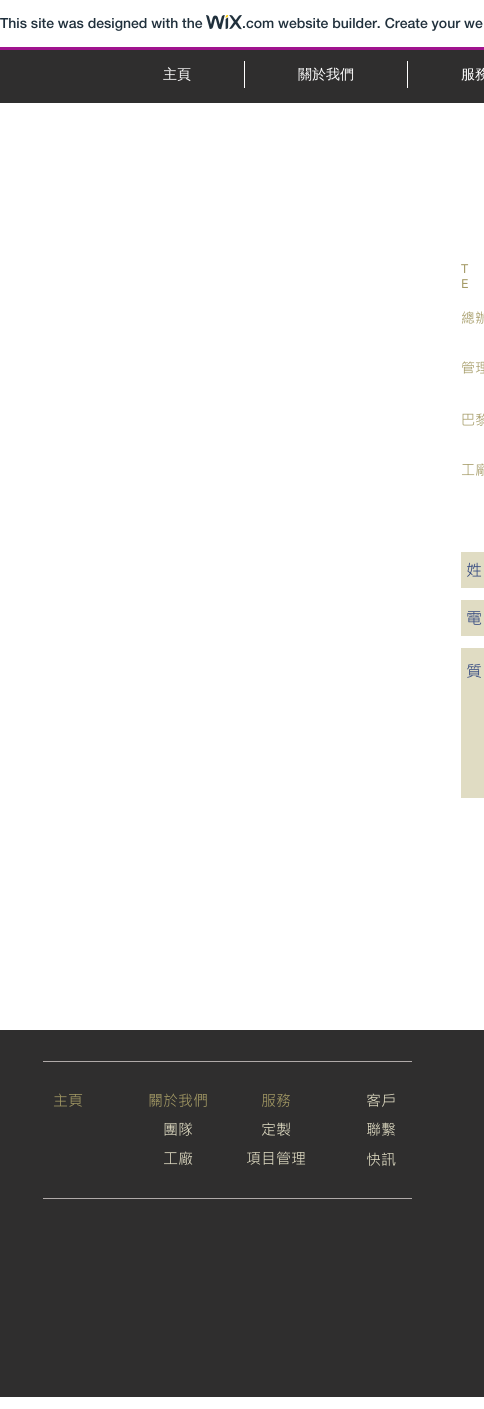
#include <cairo/cairo.h>
#include <math.h>
#include <stddef.h>

static cairo_t *cr;

static void use_color(int r, int g, int b) {
  cairo_set_source_rgb(cr, r / 255.0, g / 255.0, b / 255.0);
}

static void text(double x, double y, const char *s, const char *family, double size, int italic, int bold, int r, int g, int b) {
  cairo_select_font_face(cr, family, italic ? CAIRO_FONT_SLANT_ITALIC : CAIRO_FONT_SLANT_NORMAL,
    bold ? CAIRO_FONT_WEIGHT_BOLD : CAIRO_FONT_WEIGHT_NORMAL);
  cairo_set_font_size(cr, size);
  use_color(r, g, b);
  cairo_move_to(cr, x, y);
  cairo_show_text(cr, s);
}

static void box(double x, double y, double w, double h, int r, int g, int b) {
  use_color(r, g, b);
  cairo_rectangle(cr, x, y, w, h);
  cairo_fill(cr);
}

static void picture(const char *path, double x, double y, double w, double h) {
  cairo_surface_t *image = cairo_image_surface_create_from_png(path);
  cairo_save(cr);
  cairo_set_source_surface(cr, image, x, y);
  cairo_rectangle(cr, x, y, w, h);
  cairo_fill(cr);
  cairo_restore(cr);
  cairo_surface_destroy(image);
}

static void draw(void) {
  use_color(255, 255, 255);
  cairo_paint(cr);
  box(0, 47, 484, 3, 160, 19, 142);
  picture("img_01.png", 206, 15, 36, 15);
  box(0, 50, 484, 53, 47, 46, 46);
  box(244, 61, 1, 27, 255, 255, 255);
  box(407, 61, 1, 27, 255, 255, 255);
  box(461, 552, 23, 36, 224, 220, 195);
  box(461, 600, 23, 36, 224, 220, 195);
  box(461, 648, 23, 150, 224, 220, 195);
  box(0, 1030, 484, 367, 47, 46, 46);
  box(43, 1061, 369, 1, 176, 170, 169);
  box(43, 1198, 369, 1, 176, 170, 169);
  text(0, 28, "This site was designed with the", "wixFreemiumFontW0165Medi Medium", 14, 0, 0, 32, 48, 60);
  text(242, 28, ".com website builder. Create your we", "wixFreemiumFontW0165Medi Medium", 14, 0, 0, 32, 48, 60);
  text(163, 79, "主頁", "WenQuanYi Zen Hei Medium", 14, 0, 0, 255, 255, 255);
  text(298, 79, "關於我們", "WenQuanYi Zen Hei Medium", 14, 0, 0, 255, 255, 255);
  text(461, 79, "服務", "WenQuanYi Zen Hei Medium", 14, 0, 0, 255, 255, 255);
  text(461, 273, "T", "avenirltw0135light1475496", 12, 0, 1, 163, 153, 100);
  text(461, 288, "E", "avenirltw0135light1475496", 12, 0, 1, 163, 153, 100);
  text(461, 323, "總辦", "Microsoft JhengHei", 14, 0, 0, 163, 153, 100);
  text(461, 373, "管理", "Microsoft JhengHei", 14, 0, 0, 163, 153, 100);
  text(461, 425, "巴黎", "Microsoft JhengHei", 14, 0, 0, 163, 153, 100);
  text(461, 475, "工廠", "Microsoft JhengHei", 14, 0, 0, 163, 153, 100);
  text(466, 576, "姓", "Microsoft JhengHei", 16, 0, 0, 53, 74, 129);
  text(466, 624, "電", "Microsoft JhengHei", 16, 0, 0, 53, 74, 129);
  text(466, 677, "質", "Microsoft JhengHei", 16, 0, 0, 53, 74, 129);
  text(53, 1106, "主頁", "Microsoft JhengHei", 15, 0, 0, 163, 153, 100);
  text(148, 1106, "關於我們", "Microsoft JhengHei", 15, 0, 0, 163, 153, 100);
  text(261, 1106, "服務", "Microsoft JhengHei", 15, 0, 0, 163, 153, 100);
  text(366, 1106, "客戶", "Microsoft JhengHei", 15, 0, 0, 224, 220, 195);
  text(163, 1135, "團隊", "Microsoft JhengHei", 15, 0, 0, 224, 220, 195);
  text(261, 1135, "定製", "Microsoft JhengHei", 15, 0, 0, 224, 220, 195);
  text(366, 1135, "聯繫", "Microsoft JhengHei", 15, 0, 0, 224, 220, 195);
  text(163, 1164, "工廠", "Microsoft JhengHei", 15, 0, 0, 224, 220, 195);
  text(246, 1164, "項目管理", "Microsoft JhengHei", 15, 0, 0, 224, 220, 195);
  text(366, 1165, "快訊", "Microsoft JhengHei", 15, 0, 0, 224, 220, 195);
}

int main(void) {
  cairo_surface_t *surface = cairo_image_surface_create(CAIRO_FORMAT_RGB24, 484, 1409);
  cr = cairo_create(surface);
  cairo_font_options_t *options = cairo_font_options_create();
  cairo_font_options_set_hint_metrics(options, CAIRO_HINT_METRICS_OFF);
  cairo_font_options_set_hint_style(options, CAIRO_HINT_STYLE_NONE);
  cairo_set_font_options(cr, options);
  cairo_set_miter_limit(cr, 4);
  draw();
  cairo_surface_write_to_png(surface, "out.png");
  cairo_font_options_destroy(options);
  cairo_destroy(cr);
  cairo_surface_destroy(surface);
  return 0;
}
